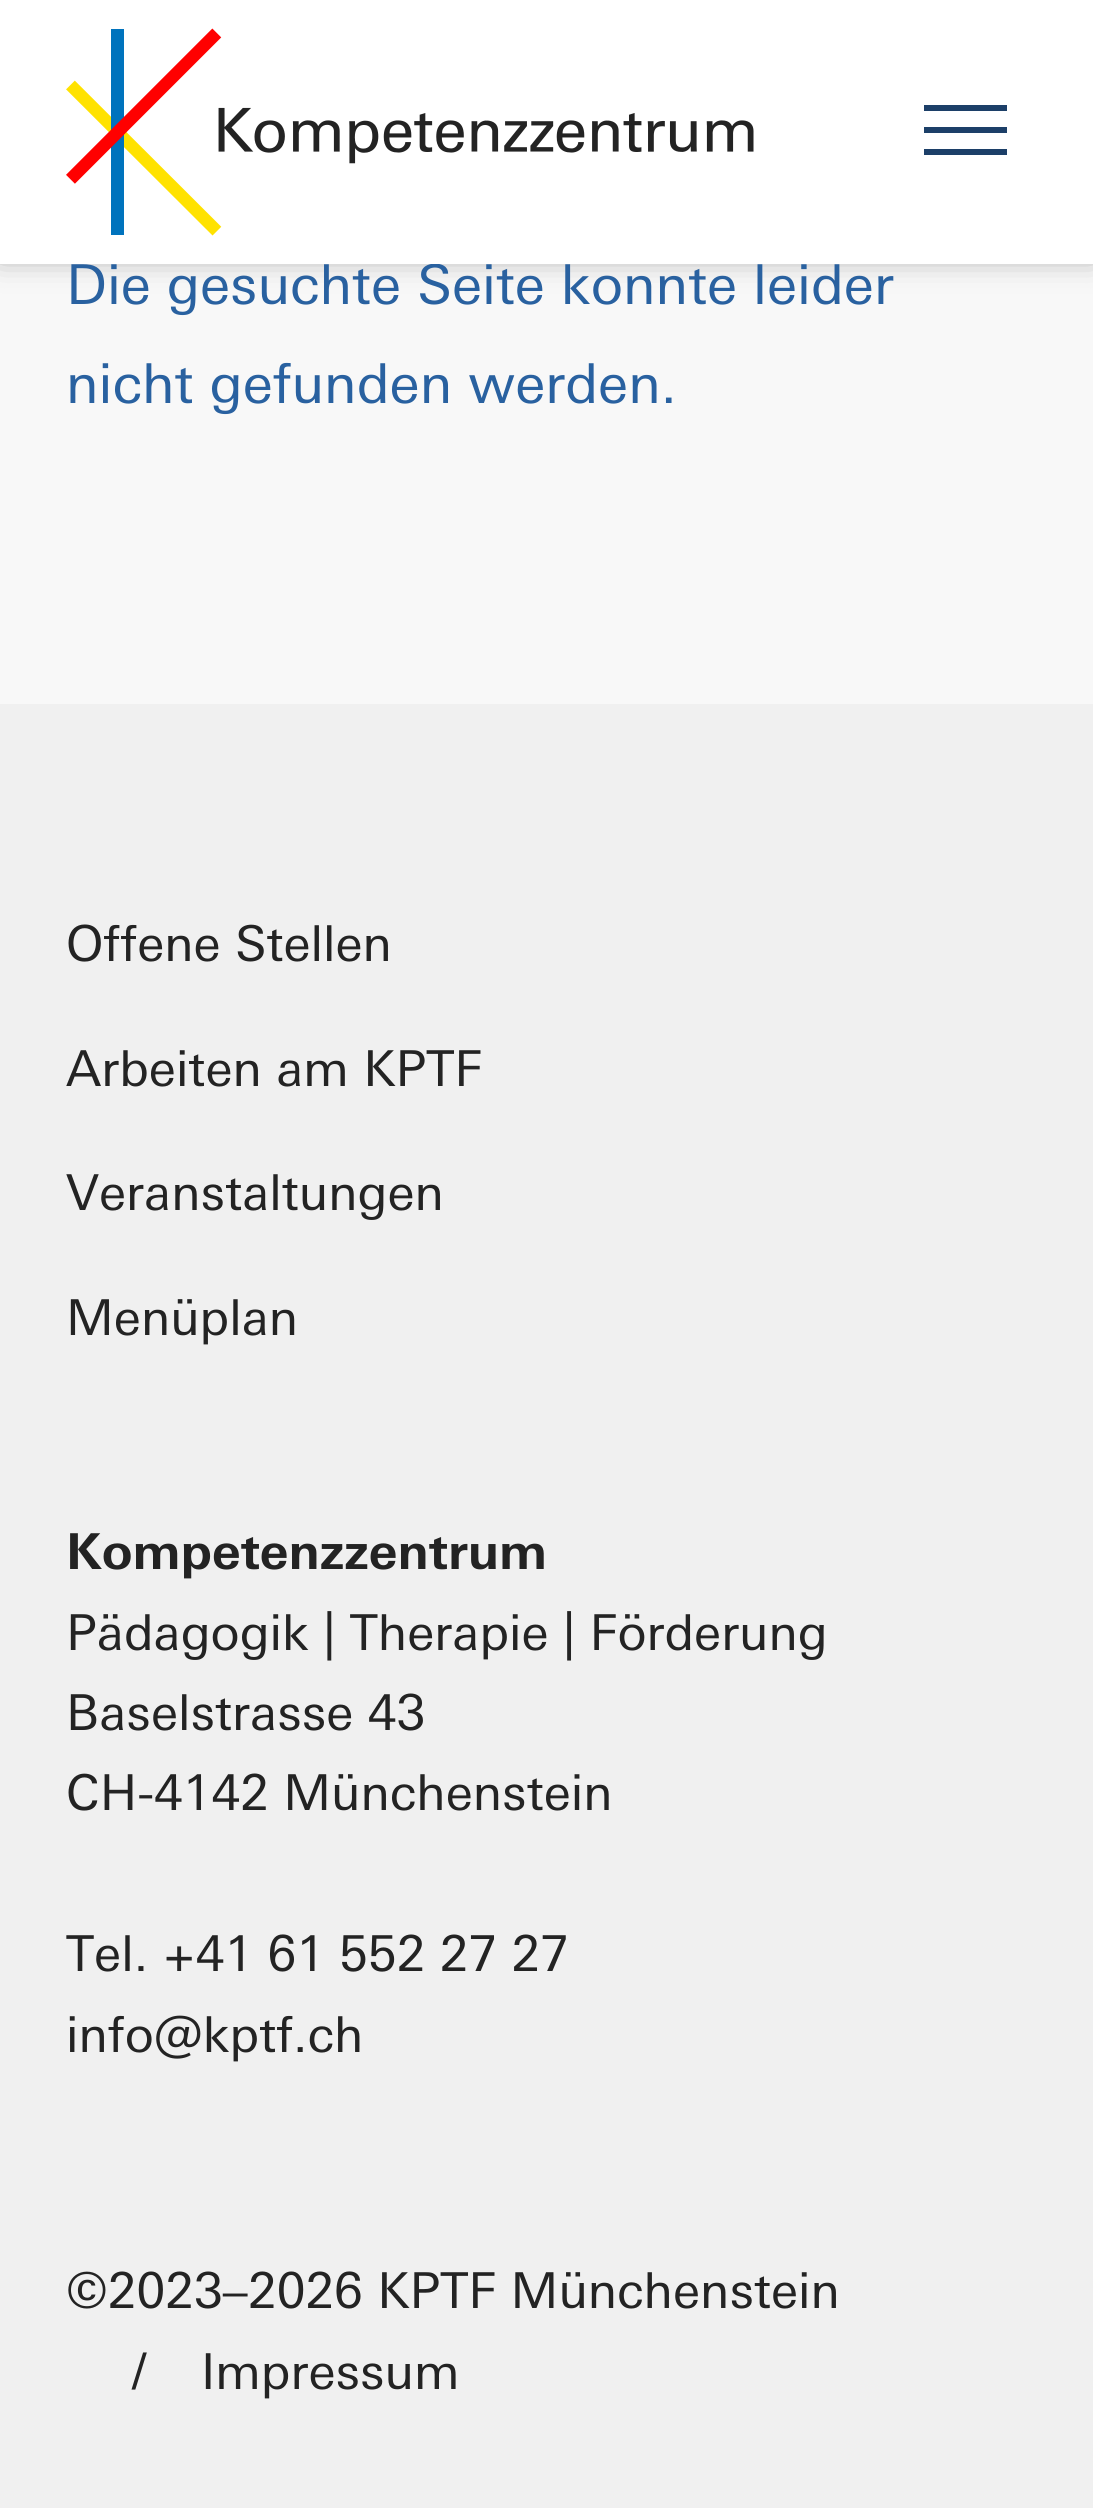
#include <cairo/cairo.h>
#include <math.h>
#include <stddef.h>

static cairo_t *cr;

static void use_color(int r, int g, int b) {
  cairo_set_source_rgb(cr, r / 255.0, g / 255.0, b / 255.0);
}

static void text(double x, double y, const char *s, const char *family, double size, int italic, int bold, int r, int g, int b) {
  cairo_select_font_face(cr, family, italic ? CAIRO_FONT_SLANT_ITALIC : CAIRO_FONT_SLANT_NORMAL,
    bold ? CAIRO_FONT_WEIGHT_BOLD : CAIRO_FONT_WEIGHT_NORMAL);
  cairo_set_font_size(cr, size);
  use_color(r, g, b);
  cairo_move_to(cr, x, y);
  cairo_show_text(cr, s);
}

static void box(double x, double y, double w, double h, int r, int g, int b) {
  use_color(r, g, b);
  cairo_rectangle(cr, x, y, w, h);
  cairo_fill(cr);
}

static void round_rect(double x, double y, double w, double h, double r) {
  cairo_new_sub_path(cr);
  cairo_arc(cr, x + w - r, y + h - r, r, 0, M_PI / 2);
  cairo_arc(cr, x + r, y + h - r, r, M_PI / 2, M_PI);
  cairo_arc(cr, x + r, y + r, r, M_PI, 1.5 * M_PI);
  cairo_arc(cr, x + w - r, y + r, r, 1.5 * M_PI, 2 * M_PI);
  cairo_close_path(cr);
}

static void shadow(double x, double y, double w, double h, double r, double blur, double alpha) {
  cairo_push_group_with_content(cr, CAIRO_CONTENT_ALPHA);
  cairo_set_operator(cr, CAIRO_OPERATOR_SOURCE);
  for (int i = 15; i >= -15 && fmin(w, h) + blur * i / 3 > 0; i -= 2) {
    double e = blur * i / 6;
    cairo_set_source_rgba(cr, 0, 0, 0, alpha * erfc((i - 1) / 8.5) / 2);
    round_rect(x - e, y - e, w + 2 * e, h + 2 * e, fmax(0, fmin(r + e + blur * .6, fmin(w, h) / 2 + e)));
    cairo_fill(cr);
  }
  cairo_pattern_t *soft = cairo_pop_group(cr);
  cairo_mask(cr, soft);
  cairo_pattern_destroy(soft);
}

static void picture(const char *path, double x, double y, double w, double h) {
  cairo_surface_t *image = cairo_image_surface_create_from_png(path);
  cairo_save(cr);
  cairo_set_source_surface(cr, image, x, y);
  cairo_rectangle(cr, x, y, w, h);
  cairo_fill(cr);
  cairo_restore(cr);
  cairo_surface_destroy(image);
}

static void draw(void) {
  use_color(248, 248, 248);
  cairo_paint(cr);
  use_color(0, 0, 0);
  shadow(0, -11, 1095, 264, 0, 16.5, 0.45);
  box(0, 704, 1093, 1804, 240, 240, 240);
  text(66, 304, "Die gesuchte Seite konnte leider", "Univers", 55, 0, 0, 41, 97, 160);
  box(0, 0, 1093, 264, 255, 255, 255);
  box(924, 149, 83, 6, 28, 63, 104);
  box(924, 105, 83, 6, 28, 63, 104);
  box(924, 127, 83, 6, 28, 63, 104);
  picture("img_01.png", 66, 28, 688, 208);
  text(66, 403, "nicht gefunden werden.", "Univers", 55, 0, 0, 41, 97, 160);
  text(66, 961, "Offene Stellen", "Univers", 49.5, 0, 0, 35, 35, 35);
  text(66, 1086, "Arbeiten am KPTF", "Univers", 49.5, 0, 0, 35, 35, 35);
  text(66, 1210, "Veranstaltungen", "Univers", 49.5, 0, 0, 35, 35, 35);
  text(66, 1335, "Menüplan", "Univers", 49.5, 0, 0, 35, 35, 35);
  text(66, 1569, "Kompetenzzentrum", "Univers", 49.5, 0, 1, 35, 35, 35);
  text(66, 1650, "Pädagogik | Therapie | Förderung", "Univers", 49.5, 0, 0, 35, 35, 35);
  text(66, 1730, "Baselstrasse 43", "Univers", 49.5, 0, 0, 35, 35, 35);
  text(66, 1810, "CH-4142 Münchenstein", "Univers", 49.5, 0, 0, 35, 35, 35);
  text(66, 1971, "Tel. +41 61 552 27 27", "Univers", 49.5, 0, 0, 35, 35, 35);
  text(66, 2052, "info@kptf.ch", "Univers", 49.5, 0, 0, 35, 35, 35);
  text(66, 2308, "©2023–2026 KPTF Münchenstein", "Univers", 49.5, 0, 0, 35, 35, 35);
  text(132, 2389, "/", "Univers", 49.5, 0, 0, 35, 35, 35);
  text(201, 2389, "Impressum", "Univers", 49.5, 0, 0, 35, 35, 35);
}

int main(void) {
  cairo_surface_t *surface = cairo_image_surface_create(CAIRO_FORMAT_RGB24, 1093, 2508);
  cr = cairo_create(surface);
  cairo_font_options_t *options = cairo_font_options_create();
  cairo_font_options_set_hint_metrics(options, CAIRO_HINT_METRICS_OFF);
  cairo_font_options_set_hint_style(options, CAIRO_HINT_STYLE_NONE);
  cairo_set_font_options(cr, options);
  cairo_set_miter_limit(cr, 4);
  draw();
  cairo_surface_write_to_png(surface, "out.png");
  cairo_font_options_destroy(options);
  cairo_destroy(cr);
  cairo_surface_destroy(surface);
  return 0;
}
